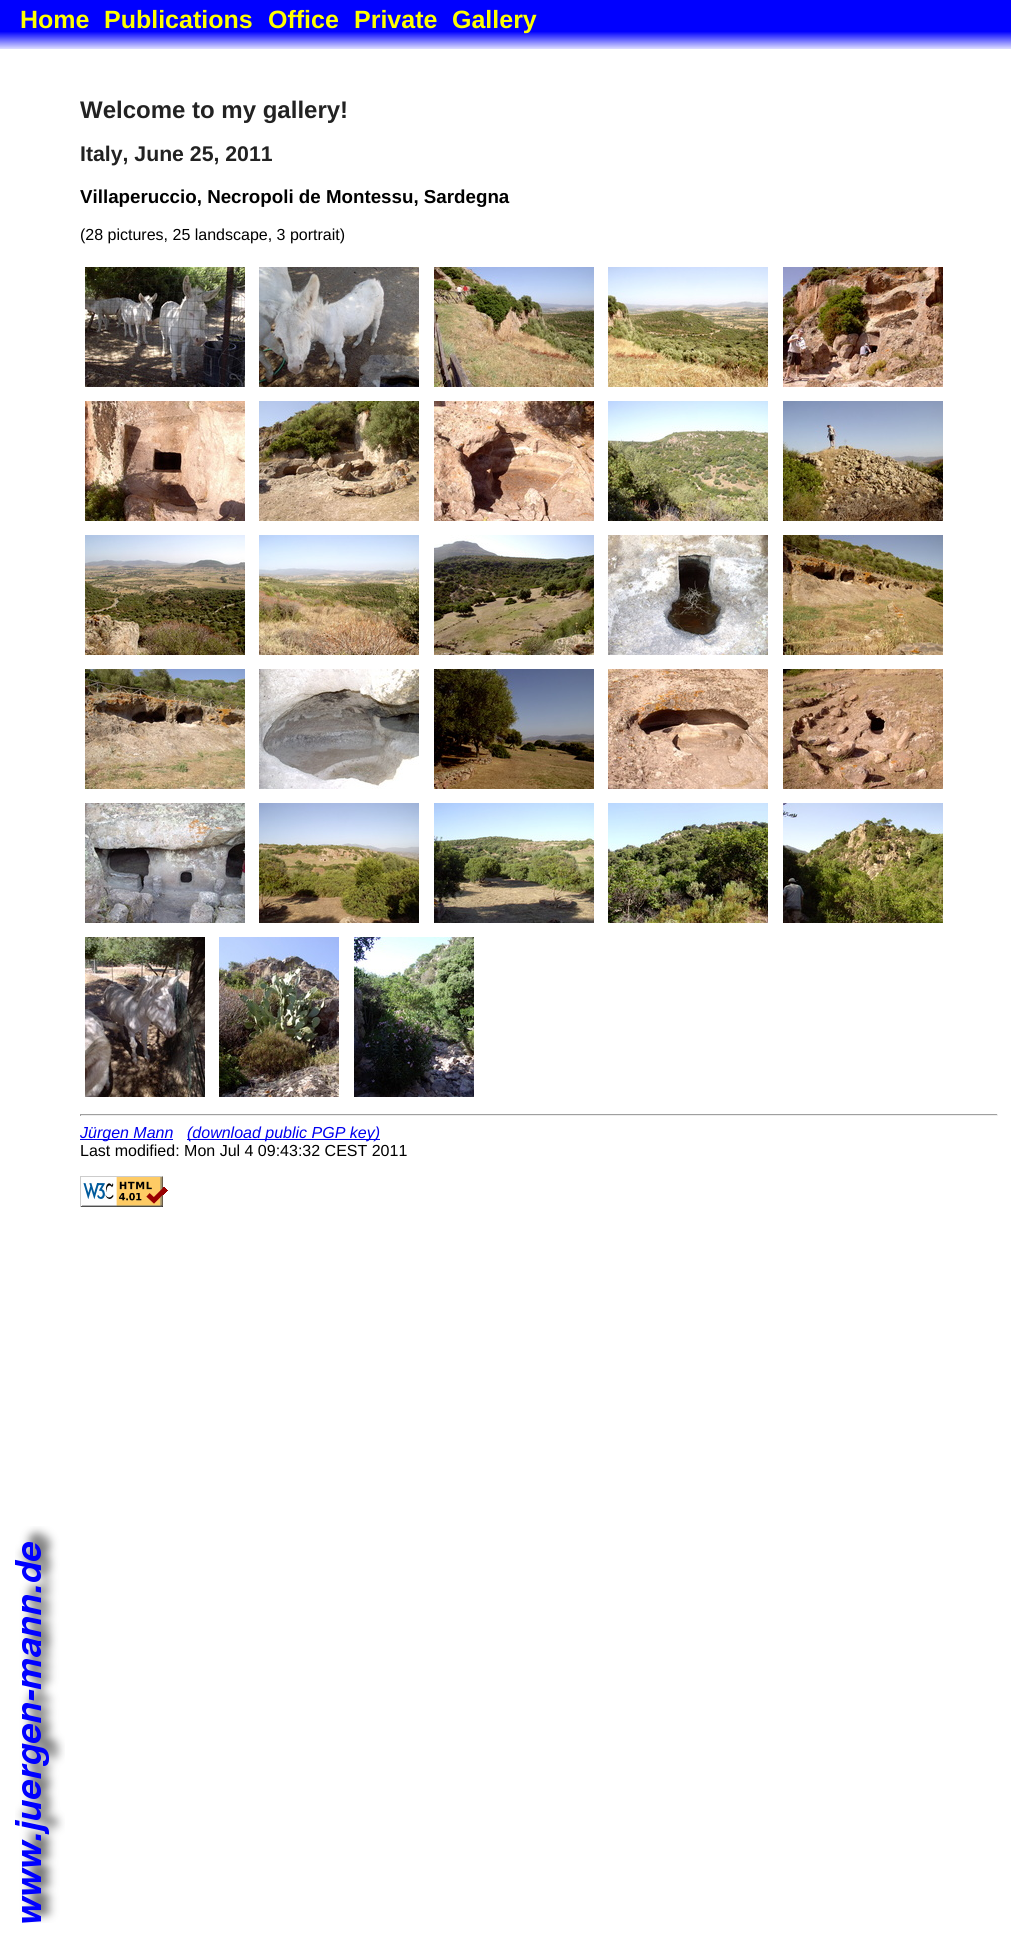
#include <cairo/cairo.h>
#include <math.h>
#include <stddef.h>

static cairo_t *cr;

static void use_color(int r, int g, int b) {
  cairo_set_source_rgb(cr, r / 255.0, g / 255.0, b / 255.0);
}

static void text(double x, double y, const char *s, const char *family, double size, int italic, int bold, int r, int g, int b) {
  cairo_select_font_face(cr, family, italic ? CAIRO_FONT_SLANT_ITALIC : CAIRO_FONT_SLANT_NORMAL,
    bold ? CAIRO_FONT_WEIGHT_BOLD : CAIRO_FONT_WEIGHT_NORMAL);
  cairo_set_font_size(cr, size);
  use_color(r, g, b);
  cairo_move_to(cr, x, y);
  cairo_show_text(cr, s);
}

static void box(double x, double y, double w, double h, int r, int g, int b) {
  use_color(r, g, b);
  cairo_rectangle(cr, x, y, w, h);
  cairo_fill(cr);
}

static void picture(const char *path, double x, double y, double w, double h) {
  cairo_surface_t *image = cairo_image_surface_create_from_png(path);
  cairo_save(cr);
  cairo_set_source_surface(cr, image, x, y);
  cairo_rectangle(cr, x, y, w, h);
  cairo_fill(cr);
  cairo_restore(cr);
  cairo_surface_destroy(image);
}

static void draw(void) {
  use_color(255, 255, 255);
  cairo_paint(cr);
  box(0, 0, 1011, 32, 0, 0, 255);
  picture("img_01.png", 0, 32, 1011, 37);
  picture("img_02.png", 85, 267, 160, 120);
  picture("img_03.png", 259, 267, 160, 120);
  picture("img_04.png", 434, 267, 160, 120);
  picture("img_05.png", 608, 267, 160, 120);
  picture("img_06.png", 783, 267, 160, 120);
  picture("img_07.png", 85, 401, 160, 120);
  picture("img_08.png", 259, 401, 160, 120);
  picture("img_09.png", 434, 401, 160, 120);
  picture("img_10.png", 608, 401, 160, 120);
  picture("img_11.png", 783, 401, 160, 120);
  picture("img_12.png", 85, 535, 160, 120);
  picture("img_13.png", 259, 535, 160, 120);
  picture("img_14.png", 434, 535, 160, 120);
  picture("img_15.png", 608, 535, 160, 120);
  picture("img_16.png", 783, 535, 160, 120);
  picture("img_17.png", 85, 669, 160, 120);
  picture("img_18.png", 259, 669, 160, 120);
  picture("img_19.png", 434, 669, 160, 120);
  picture("img_20.png", 608, 669, 160, 120);
  picture("img_21.png", 783, 669, 160, 120);
  picture("img_22.png", 85, 803, 160, 120);
  picture("img_23.png", 259, 803, 160, 120);
  picture("img_24.png", 434, 803, 160, 120);
  picture("img_25.png", 608, 803, 160, 120);
  picture("img_26.png", 783, 803, 160, 120);
  picture("img_27.png", 85, 937, 120, 160);
  picture("img_28.png", 219, 937, 120, 160);
  picture("img_29.png", 354, 937, 120, 160);
  box(80, 1114, 918, 1, 159, 159, 159);
  box(997, 1114, 1, 2, 238, 238, 238);
  box(80, 1115, 918, 1, 238, 238, 238);
  box(80, 1114, 1, 2, 159, 159, 159);
  box(80, 1139, 93, 1, 0, 0, 238);
  box(187, 1139, 193, 1, 0, 0, 238);
  picture("img_30.png", 80, 1176, 88, 31);
  picture("img_31.png", 15, 1526, 50, 397);
  text(20, 28, "Home", "Liberation Sans", 25, 0, 1, 255, 255, 0);
  text(104, 28, "Publications", "Liberation Sans", 25, 0, 1, 255, 255, 0);
  text(268, 28, "Office", "Liberation Sans", 25, 0, 1, 255, 255, 0);
  text(354, 28, "Private", "Liberation Sans", 25, 0, 1, 255, 255, 0);
  text(452, 28, "Gallery", "Liberation Sans", 25, 0, 1, 255, 255, 0);
  text(80, 118, "Welcome to my gallery!", "Liberation Sans", 24, 0, 1, 34, 34, 34);
  text(80, 161, "Italy, June 25, 2011", "Liberation Sans", 21.25, 0, 1, 34, 34, 34);
  text(80, 203, "Villaperuccio, Necropoli de Montessu, Sardegna", "Liberation Sans", 18.75, 0, 1, 0, 0, 0);
  text(80, 240, "(28 pictures, 25 landscape, 3 portrait)", "Liberation Sans", 16, 0, 0, 0, 0, 0);
  text(80, 1138, "Jürgen Mann", "Liberation Sans", 16, 1, 0, 0, 0, 238);
  text(187, 1138, "(download public PGP key)", "Liberation Sans", 16, 1, 0, 0, 0, 238);
  text(80, 1156, "Last modified: Mon Jul 4 09:43:32 CEST 2011", "Liberation Sans", 16, 0, 0, 0, 0, 0);
}

int main(void) {
  cairo_surface_t *surface = cairo_image_surface_create(CAIRO_FORMAT_RGB24, 1011, 1952);
  cr = cairo_create(surface);
  cairo_font_options_t *options = cairo_font_options_create();
  cairo_font_options_set_hint_metrics(options, CAIRO_HINT_METRICS_OFF);
  cairo_font_options_set_hint_style(options, CAIRO_HINT_STYLE_NONE);
  cairo_set_font_options(cr, options);
  cairo_set_miter_limit(cr, 4);
  draw();
  cairo_surface_write_to_png(surface, "out.png");
  cairo_font_options_destroy(options);
  cairo_destroy(cr);
  cairo_surface_destroy(surface);
  return 0;
}
